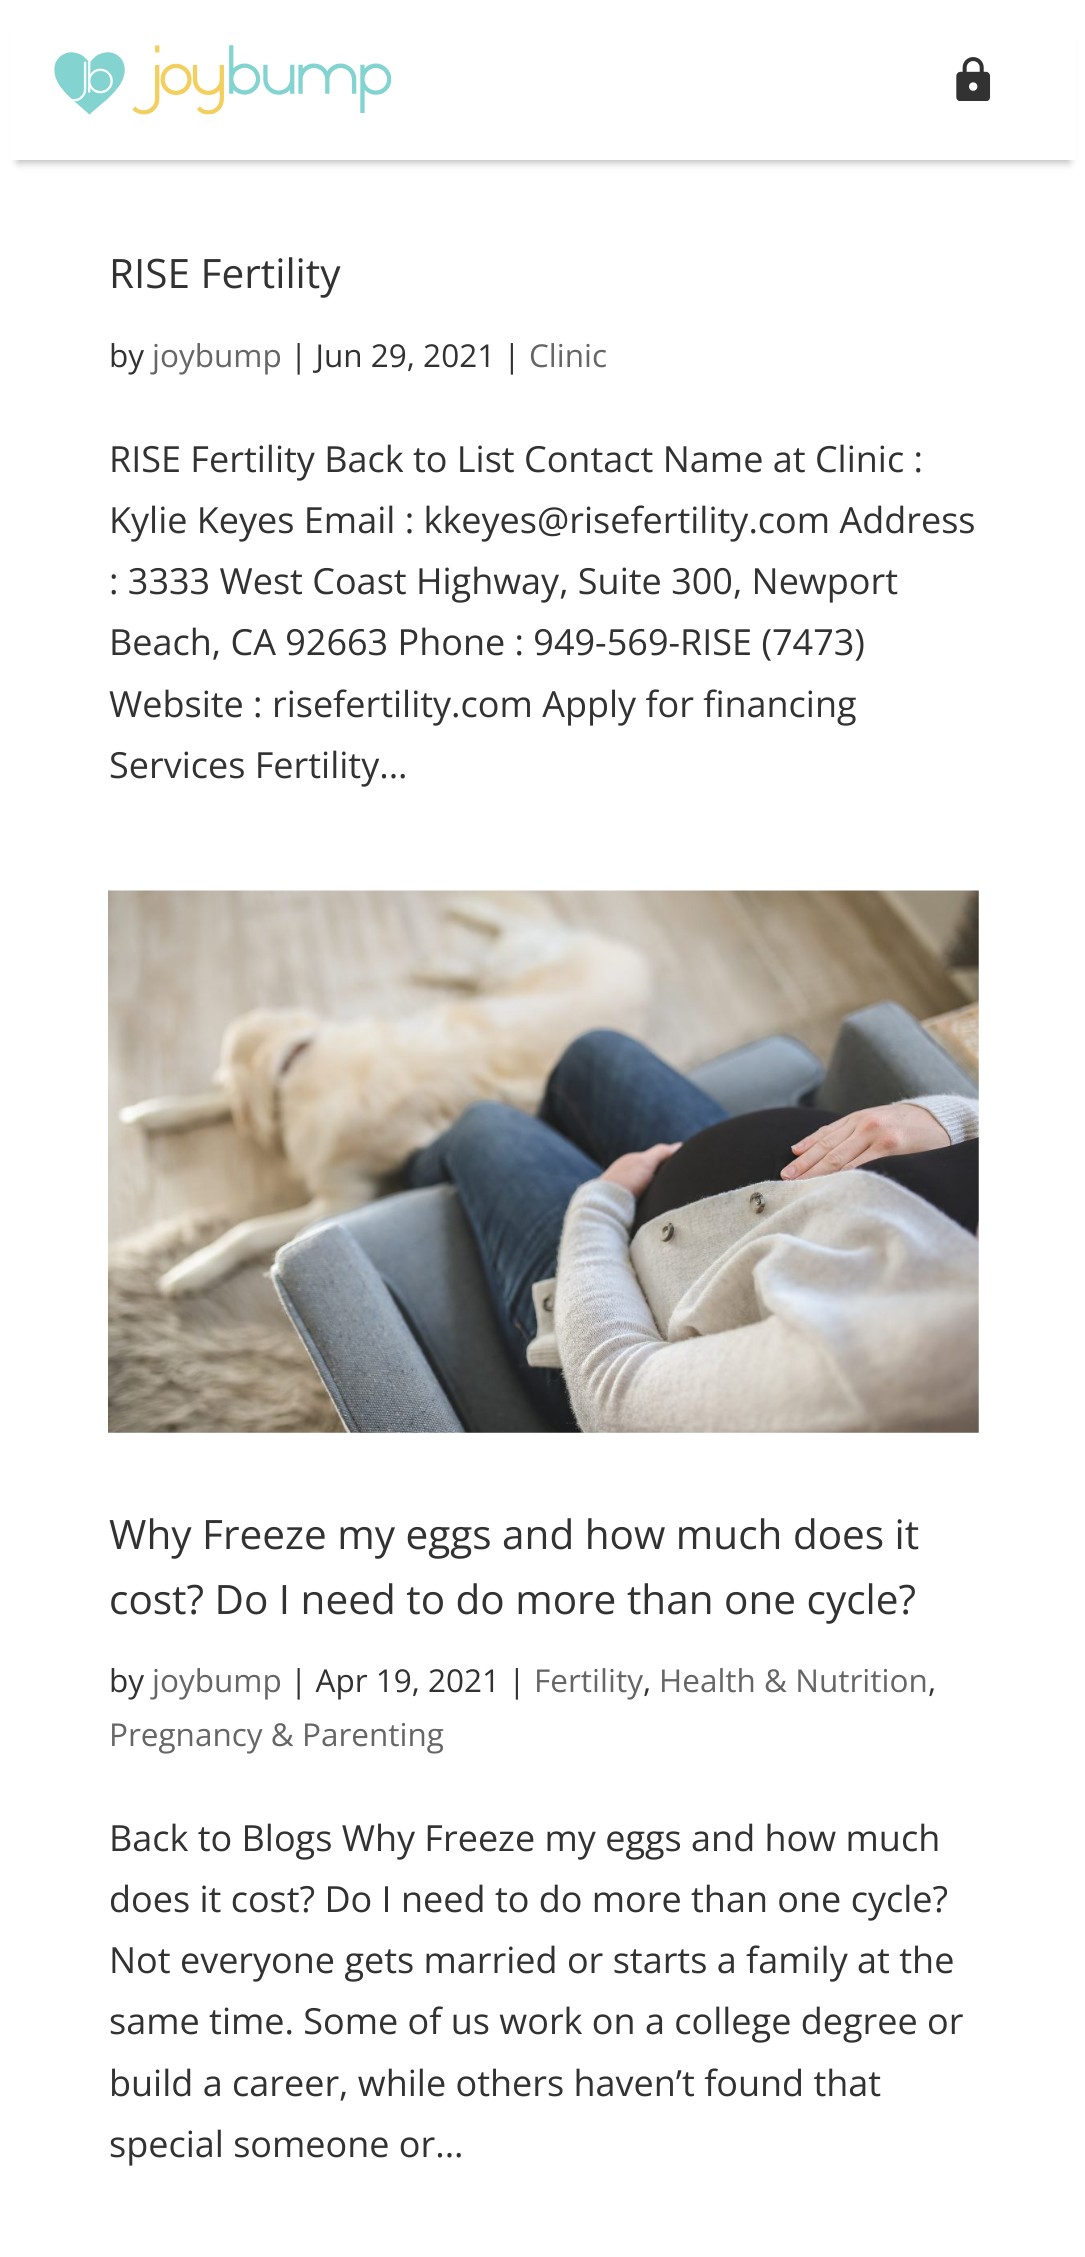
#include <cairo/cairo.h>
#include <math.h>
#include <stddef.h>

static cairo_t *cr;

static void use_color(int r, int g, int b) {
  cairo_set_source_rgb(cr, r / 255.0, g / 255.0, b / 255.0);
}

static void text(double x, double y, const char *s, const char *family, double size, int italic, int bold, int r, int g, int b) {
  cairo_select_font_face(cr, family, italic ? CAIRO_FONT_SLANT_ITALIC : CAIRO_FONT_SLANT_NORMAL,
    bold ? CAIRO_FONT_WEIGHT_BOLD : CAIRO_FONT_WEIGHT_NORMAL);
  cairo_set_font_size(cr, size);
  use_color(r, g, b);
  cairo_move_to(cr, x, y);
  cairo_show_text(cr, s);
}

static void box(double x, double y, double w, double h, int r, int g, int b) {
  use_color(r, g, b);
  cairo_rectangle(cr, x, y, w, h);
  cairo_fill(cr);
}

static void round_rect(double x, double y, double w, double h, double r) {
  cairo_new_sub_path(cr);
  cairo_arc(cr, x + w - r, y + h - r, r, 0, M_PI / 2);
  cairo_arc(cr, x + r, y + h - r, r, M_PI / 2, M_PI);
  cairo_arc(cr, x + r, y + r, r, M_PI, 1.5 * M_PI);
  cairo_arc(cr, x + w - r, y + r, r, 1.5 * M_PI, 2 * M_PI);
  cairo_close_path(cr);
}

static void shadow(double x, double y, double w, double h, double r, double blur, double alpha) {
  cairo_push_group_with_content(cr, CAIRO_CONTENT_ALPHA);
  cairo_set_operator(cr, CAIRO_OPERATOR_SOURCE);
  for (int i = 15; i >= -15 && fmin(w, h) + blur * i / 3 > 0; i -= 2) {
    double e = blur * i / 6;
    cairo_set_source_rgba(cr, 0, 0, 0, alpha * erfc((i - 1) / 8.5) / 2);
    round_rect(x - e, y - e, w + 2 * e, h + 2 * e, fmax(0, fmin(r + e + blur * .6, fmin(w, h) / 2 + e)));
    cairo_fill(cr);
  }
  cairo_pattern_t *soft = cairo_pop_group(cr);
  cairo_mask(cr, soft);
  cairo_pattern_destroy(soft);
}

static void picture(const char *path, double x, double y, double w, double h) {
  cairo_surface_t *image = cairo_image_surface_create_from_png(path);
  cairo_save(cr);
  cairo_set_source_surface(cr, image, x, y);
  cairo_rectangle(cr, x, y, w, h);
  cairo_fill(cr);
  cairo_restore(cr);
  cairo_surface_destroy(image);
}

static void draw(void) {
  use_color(255, 255, 255);
  cairo_paint(cr);
  use_color(0, 0, 0);
  shadow(18, 38, 1051, 124, 0, 4.5, 0.3);
  box(10, 30, 1067, 130, 255, 255, 255);
  picture("img_01.png", 54, 45, 338, 70);
  picture("img_02.png", 956, 57, 35, 44);
  picture("img_03.png", 108, 890, 871, 543);
  text(109, 288, "RISE Fertility", "Open Sans", 40.5, 0, 0, 50, 50, 50);
  text(109, 367, "by", "Open Sans", 31.5, 0, 0, 50, 50, 50);
  text(152, 367, "joybump", "Open Sans", 31.5, 0, 0, 102, 102, 102);
  text(290, 367, "| Jun 29, 2021 |", "Open Sans", 31.5, 0, 0, 50, 50, 50);
  text(529, 367, "Clinic", "Open Sans", 31.5, 0, 0, 102, 102, 102);
  text(109, 472, "RISE Fertility Back to List Contact Name at Clinic :", "Open Sans", 36, 0, 0, 50, 50, 50);
  text(109, 533, "Kylie Keyes Email : kkeyes@risefertility.com Address", "Open Sans", 36, 0, 0, 50, 50, 50);
  text(109, 594, ": 3333 West Coast Highway, Suite 300, Newport", "Open Sans", 36, 0, 0, 50, 50, 50);
  text(109, 655, "Beach, CA 92663 Phone : 949-569-RISE (7473)", "Open Sans", 36, 0, 0, 50, 50, 50);
  text(109, 717, "Website : risefertility.com Apply for financing", "Open Sans", 36, 0, 0, 50, 50, 50);
  text(109, 778, "Services Fertility...", "Open Sans", 36, 0, 0, 50, 50, 50);
  text(109, 1549, "Why Freeze my eggs and how much does it", "Open Sans", 40.5, 0, 0, 50, 50, 50);
  text(109, 1614, "cost? Do I need to do more than one cycle?", "Open Sans", 40.5, 0, 0, 50, 50, 50);
  text(109, 1692, "by", "Open Sans", 31.5, 0, 0, 50, 50, 50);
  text(152, 1692, "joybump", "Open Sans", 31.5, 0, 0, 102, 102, 102);
  text(290, 1692, "| Apr 19, 2021 |", "Open Sans", 31.5, 0, 0, 50, 50, 50);
  text(534, 1692, "Fertility", "Open Sans", 31.5, 0, 0, 102, 102, 102);
  text(643, 1692, ",", "Open Sans", 31.5, 0, 0, 50, 50, 50);
  text(659, 1692, "Health & Nutrition", "Open Sans", 31.5, 0, 0, 102, 102, 102);
  text(928, 1692, ",", "Open Sans", 31.5, 0, 0, 50, 50, 50);
  text(109, 1746, "Pregnancy & Parenting", "Open Sans", 31.5, 0, 0, 102, 102, 102);
  text(109, 1851, "Back to Blogs Why Freeze my eggs and how much", "Open Sans", 36, 0, 0, 50, 50, 50);
  text(109, 1912, "does it cost? Do I need to do more than one cycle?", "Open Sans", 36, 0, 0, 50, 50, 50);
  text(109, 1973, "Not everyone gets married or starts a family at the", "Open Sans", 36, 0, 0, 50, 50, 50);
  text(109, 2034, "same time. Some of us work on a college degree or", "Open Sans", 36, 0, 0, 50, 50, 50);
  text(109, 2096, "build a career, while others haven’t found that", "Open Sans", 36, 0, 0, 50, 50, 50);
  text(109, 2157, "special someone or...", "Open Sans", 36, 0, 0, 50, 50, 50);
}

int main(void) {
  cairo_surface_t *surface = cairo_image_surface_create(CAIRO_FORMAT_RGB24, 1085, 2257);
  cr = cairo_create(surface);
  cairo_font_options_t *options = cairo_font_options_create();
  cairo_font_options_set_hint_metrics(options, CAIRO_HINT_METRICS_OFF);
  cairo_font_options_set_hint_style(options, CAIRO_HINT_STYLE_NONE);
  cairo_set_font_options(cr, options);
  cairo_set_miter_limit(cr, 4);
  draw();
  cairo_surface_write_to_png(surface, "out.png");
  cairo_font_options_destroy(options);
  cairo_destroy(cr);
  cairo_surface_destroy(surface);
  return 0;
}
